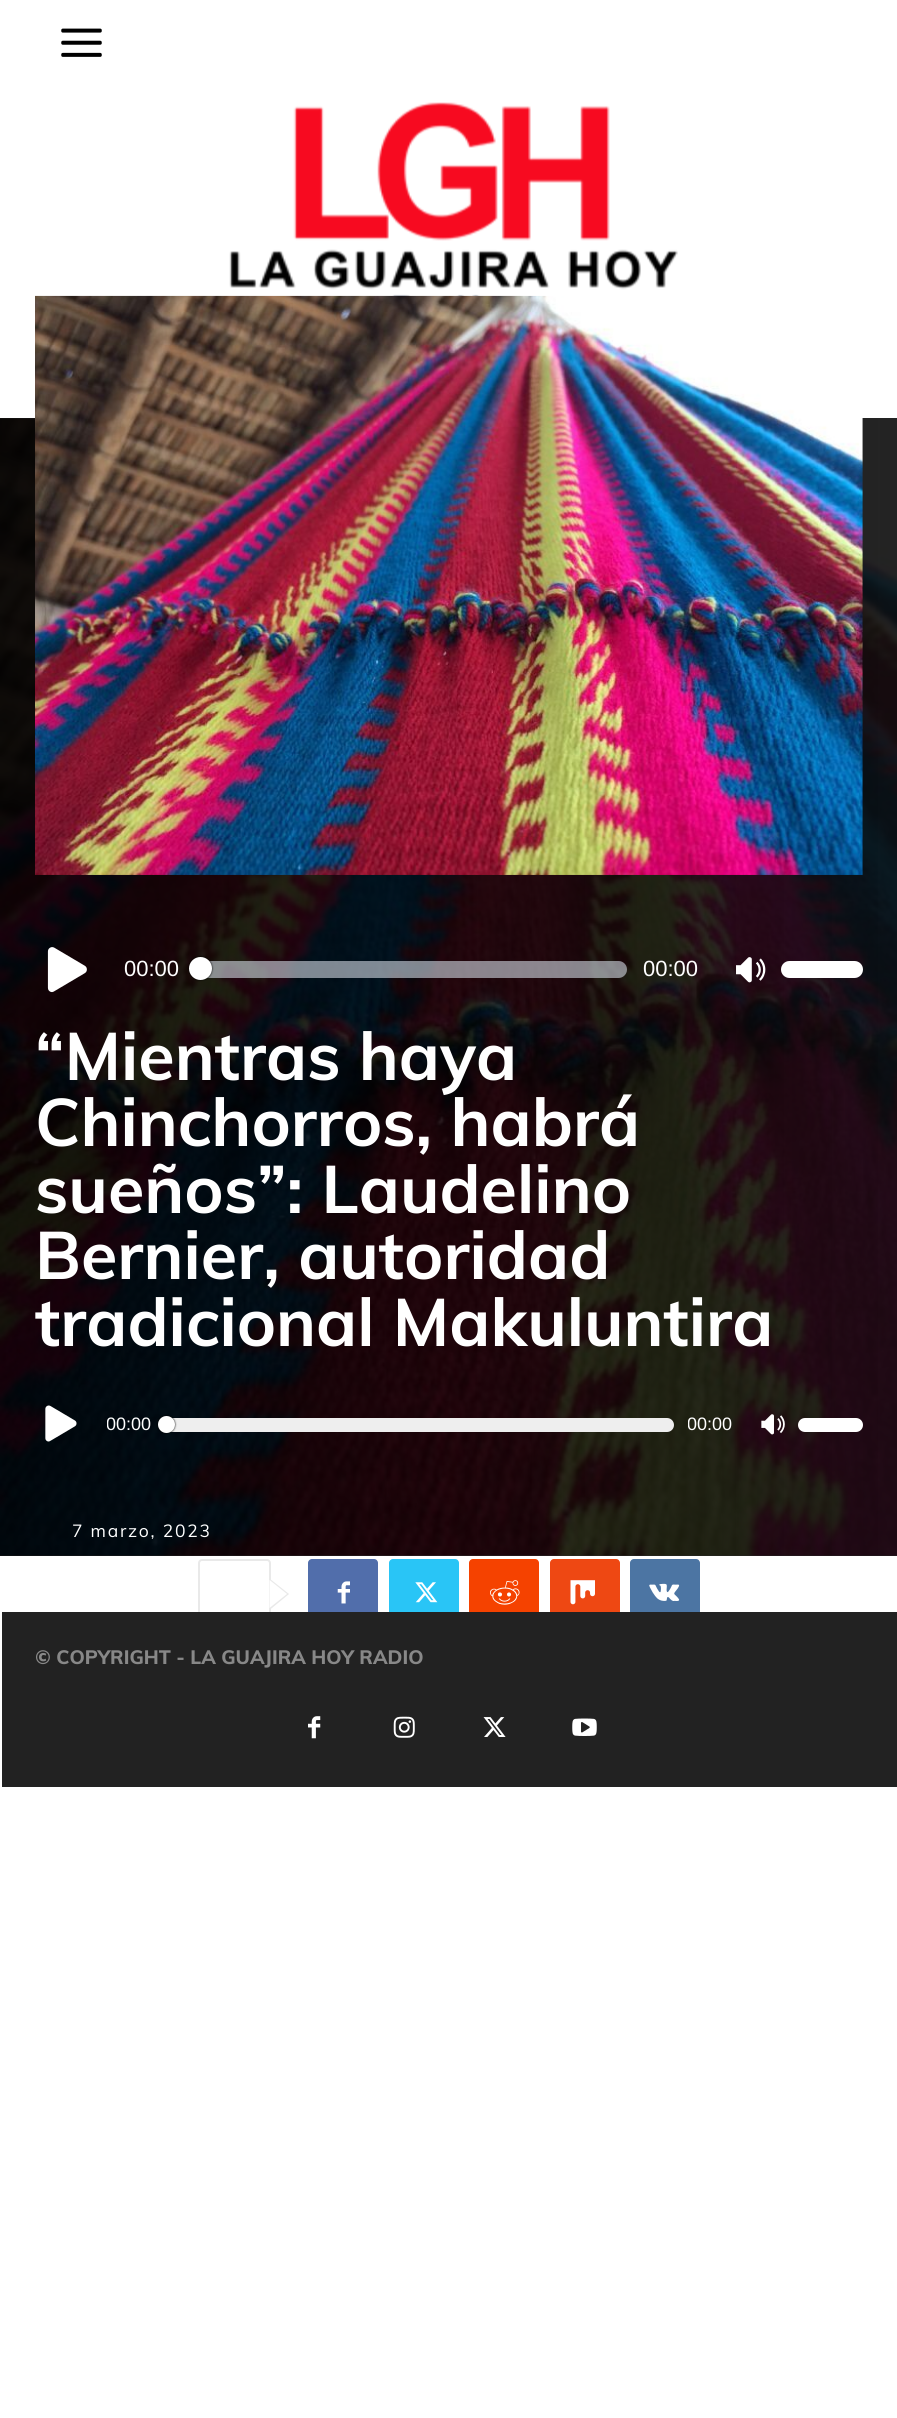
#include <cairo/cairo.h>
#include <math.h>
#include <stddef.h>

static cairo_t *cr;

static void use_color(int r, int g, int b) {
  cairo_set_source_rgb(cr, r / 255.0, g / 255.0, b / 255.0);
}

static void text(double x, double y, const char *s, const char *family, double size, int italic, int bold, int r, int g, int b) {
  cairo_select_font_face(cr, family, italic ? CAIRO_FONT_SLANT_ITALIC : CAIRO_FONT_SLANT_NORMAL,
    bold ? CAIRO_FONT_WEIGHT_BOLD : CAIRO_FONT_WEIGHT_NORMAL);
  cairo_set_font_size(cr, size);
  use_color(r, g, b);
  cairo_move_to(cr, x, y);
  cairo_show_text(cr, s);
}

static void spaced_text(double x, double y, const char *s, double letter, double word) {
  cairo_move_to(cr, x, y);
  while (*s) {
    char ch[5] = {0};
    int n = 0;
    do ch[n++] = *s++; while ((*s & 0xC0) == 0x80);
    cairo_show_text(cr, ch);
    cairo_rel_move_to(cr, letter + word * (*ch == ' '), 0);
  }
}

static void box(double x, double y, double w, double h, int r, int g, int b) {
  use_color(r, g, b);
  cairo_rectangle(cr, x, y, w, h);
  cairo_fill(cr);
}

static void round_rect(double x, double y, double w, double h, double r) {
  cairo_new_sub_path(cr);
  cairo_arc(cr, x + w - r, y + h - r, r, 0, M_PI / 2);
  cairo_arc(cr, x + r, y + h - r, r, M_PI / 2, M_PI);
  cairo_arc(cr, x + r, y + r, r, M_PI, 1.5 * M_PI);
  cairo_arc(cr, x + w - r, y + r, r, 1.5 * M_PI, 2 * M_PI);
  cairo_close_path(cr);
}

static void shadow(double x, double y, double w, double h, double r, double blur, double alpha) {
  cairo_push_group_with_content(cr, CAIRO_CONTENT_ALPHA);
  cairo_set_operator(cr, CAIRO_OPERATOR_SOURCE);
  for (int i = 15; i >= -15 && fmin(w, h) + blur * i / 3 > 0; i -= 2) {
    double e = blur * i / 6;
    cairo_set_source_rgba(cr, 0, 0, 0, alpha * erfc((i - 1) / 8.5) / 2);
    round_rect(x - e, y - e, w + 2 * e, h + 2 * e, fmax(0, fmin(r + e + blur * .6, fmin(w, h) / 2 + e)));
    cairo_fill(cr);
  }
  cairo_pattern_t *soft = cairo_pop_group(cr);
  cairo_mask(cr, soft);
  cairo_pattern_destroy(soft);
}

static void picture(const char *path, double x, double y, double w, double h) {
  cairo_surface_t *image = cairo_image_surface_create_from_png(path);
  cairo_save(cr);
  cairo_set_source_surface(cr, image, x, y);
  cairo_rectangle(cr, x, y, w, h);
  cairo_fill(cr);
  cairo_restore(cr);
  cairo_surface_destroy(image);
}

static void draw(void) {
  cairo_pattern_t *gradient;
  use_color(255, 255, 255);
  cairo_paint(cr);
  picture("img_01.png", 61, 28, 41, 29);
  picture("img_02.png", 229, 102, 449, 194);
  picture("img_03.png", 0, 418, 897, 1138);
  gradient = cairo_pattern_create_linear(0, 987, 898, 987);
  cairo_pattern_add_color_stop_rgba(gradient, 0, 0, 0, 0, 0.9);
  cairo_pattern_add_color_stop_rgba(gradient, 0.5, 0, 0, 0, 0.8);
  cairo_pattern_add_color_stop_rgba(gradient, 1, 0.039, 0.039, 0.039, 0.9);
  cairo_set_source(cr, gradient);
  cairo_pattern_destroy(gradient);
  cairo_rectangle(cr, 0, 418, 897, 1138);
  cairo_fill(cr);
  picture("img_04.png", 35, 295, 828, 580);
  picture("img_05.png", 47, 947, 40, 46);
  cairo_set_source_rgba(cr, 0.827, 0.859, 0.894, 0.6);
  round_rect(196, 961, 431, 17, 8.5);
  cairo_fill(cr);
  use_color(0, 0, 0);
  shadow(189, 957, 23, 23, 11.5, 1, 1);
  use_color(255, 255, 255);
  cairo_arc(cr, 200.5, 968.5, 9, 0, 2 * M_PI);
  cairo_fill_preserve(cr);
  cairo_set_line_width(cr, 5);
  cairo_stroke(cr);
  picture("img_06.png", 736, 957, 30, 26);
  round_rect(781, 961, 82, 17, 8.5);
  cairo_fill(cr);
  picture("img_07.png", 45, 1405, 32, 37);
  use_color(238, 238, 238);
  round_rect(165, 1418, 509, 14, 7);
  cairo_fill(cr);
  use_color(0, 0, 0);
  shadow(158, 1416, 17, 17, 8.5, 1, 1);
  use_color(255, 255, 255);
  cairo_arc(cr, 166.5, 1424.5, 6, 0, 2 * M_PI);
  cairo_fill_preserve(cr);
  cairo_stroke(cr);
  picture("img_08.png", 761, 1414, 24, 21);
  round_rect(798, 1418, 65, 14, 7);
  cairo_fill(cr);
  round_rect(199, 1560, 71, 68, 3);
  use_color(233, 233, 233);
  cairo_set_line_width(cr, 2);
  cairo_stroke(cr);
  cairo_new_path(cr);
  cairo_move_to(cr, 269.5, 1610);
  cairo_line_to(cr, 269.5, 1578.5);
  cairo_line_to(cr, 289, 1594);
  cairo_close_path(cr);
  cairo_fill(cr);
  use_color(255, 255, 255);
  cairo_new_path(cr);
  cairo_move_to(cr, 269.5, 1608);
  cairo_line_to(cr, 269.5, 1580);
  cairo_line_to(cr, 287, 1594);
  cairo_close_path(cr);
  cairo_fill(cr);
  use_color(81, 110, 171);
  round_rect(308, 1559, 70, 70, 4);
  cairo_fill(cr);
  picture("img_09.png", 337, 1581, 13, 23);
  use_color(41, 197, 246);
  round_rect(389, 1559, 70, 70, 4);
  cairo_fill(cr);
  picture("img_10.png", 415, 1582, 23, 21);
  use_color(245, 66, 0);
  round_rect(469, 1559, 70, 70, 4);
  cairo_fill(cr);
  picture("img_11.png", 490, 1580, 30, 25);
  use_color(238, 72, 19);
  round_rect(550, 1559, 70, 70, 4);
  cairo_fill(cr);
  picture("img_12.png", 570, 1580, 25, 25);
  use_color(76, 117, 163);
  round_rect(630, 1559, 70, 70, 4);
  cairo_fill(cr);
  picture("img_13.png", 649, 1583, 31, 18);
  box(2, 1612, 895, 175, 34, 34, 34);
  picture("img_14.png", 308, 1716, 13, 23);
  picture("img_15.png", 393, 1716, 22, 22);
  picture("img_16.png", 483, 1717, 23, 20);
  picture("img_17.png", 572, 1718, 25, 18);
  text(124, 976, "00:00", "Liberation Sans", 22, 0, 0, 255, 255, 255);
  text(643, 976, "00:00", "Liberation Sans", 22, 0, 0, 255, 255, 255);
  text(35, 1080, "“Mientras haya", "Muli", 66.5, 0, 1, 255, 255, 255);
  text(35, 1146, "Chinchorros, habrá", "Muli", 66.5, 0, 1, 255, 255, 255);
  text(35, 1213, "sueños”: Laudelino", "Muli", 66.5, 0, 1, 255, 255, 255);
  text(35, 1279, "Bernier, autoridad", "Muli", 66.5, 0, 1, 255, 255, 255);
  text(35, 1346, "tradicional Makuluntira", "Muli", 66.5, 0, 1, 255, 255, 255);
  cairo_save(cr);
  cairo_rectangle(cr, 107, 1416, 44, 17);
  cairo_clip(cr);
  text(106, 1430, "00:00", "Liberation Sans", 18, 0, 0, 255, 255, 255);
  cairo_restore(cr);
  cairo_save(cr);
  cairo_rectangle(cr, 688, 1416, 44, 17);
  cairo_clip(cr);
  text(687, 1430, "00:00", "Liberation Sans", 18, 0, 0, 255, 255, 255);
  cairo_restore(cr);
  cairo_select_font_face(cr, "Muli", CAIRO_FONT_SLANT_NORMAL, CAIRO_FONT_WEIGHT_NORMAL);
  cairo_set_font_size(cr, 17.5);
  spaced_text(72, 1537, "7 marzo, 2023", 1.75, 0);
  text(35, 1664, "© COPYRIGHT - LA GUAJIRA HOY RADIO", "Muli ExtraBold", 19.25, 0, 0, 136, 136, 136);
}

int main(void) {
  cairo_surface_t *surface = cairo_image_surface_create(CAIRO_FORMAT_RGB24, 897, 2418);
  cr = cairo_create(surface);
  cairo_font_options_t *options = cairo_font_options_create();
  cairo_font_options_set_hint_metrics(options, CAIRO_HINT_METRICS_OFF);
  cairo_font_options_set_hint_style(options, CAIRO_HINT_STYLE_NONE);
  cairo_set_font_options(cr, options);
  cairo_set_miter_limit(cr, 4);
  draw();
  cairo_surface_write_to_png(surface, "out.png");
  cairo_font_options_destroy(options);
  cairo_destroy(cr);
  cairo_surface_destroy(surface);
  return 0;
}
